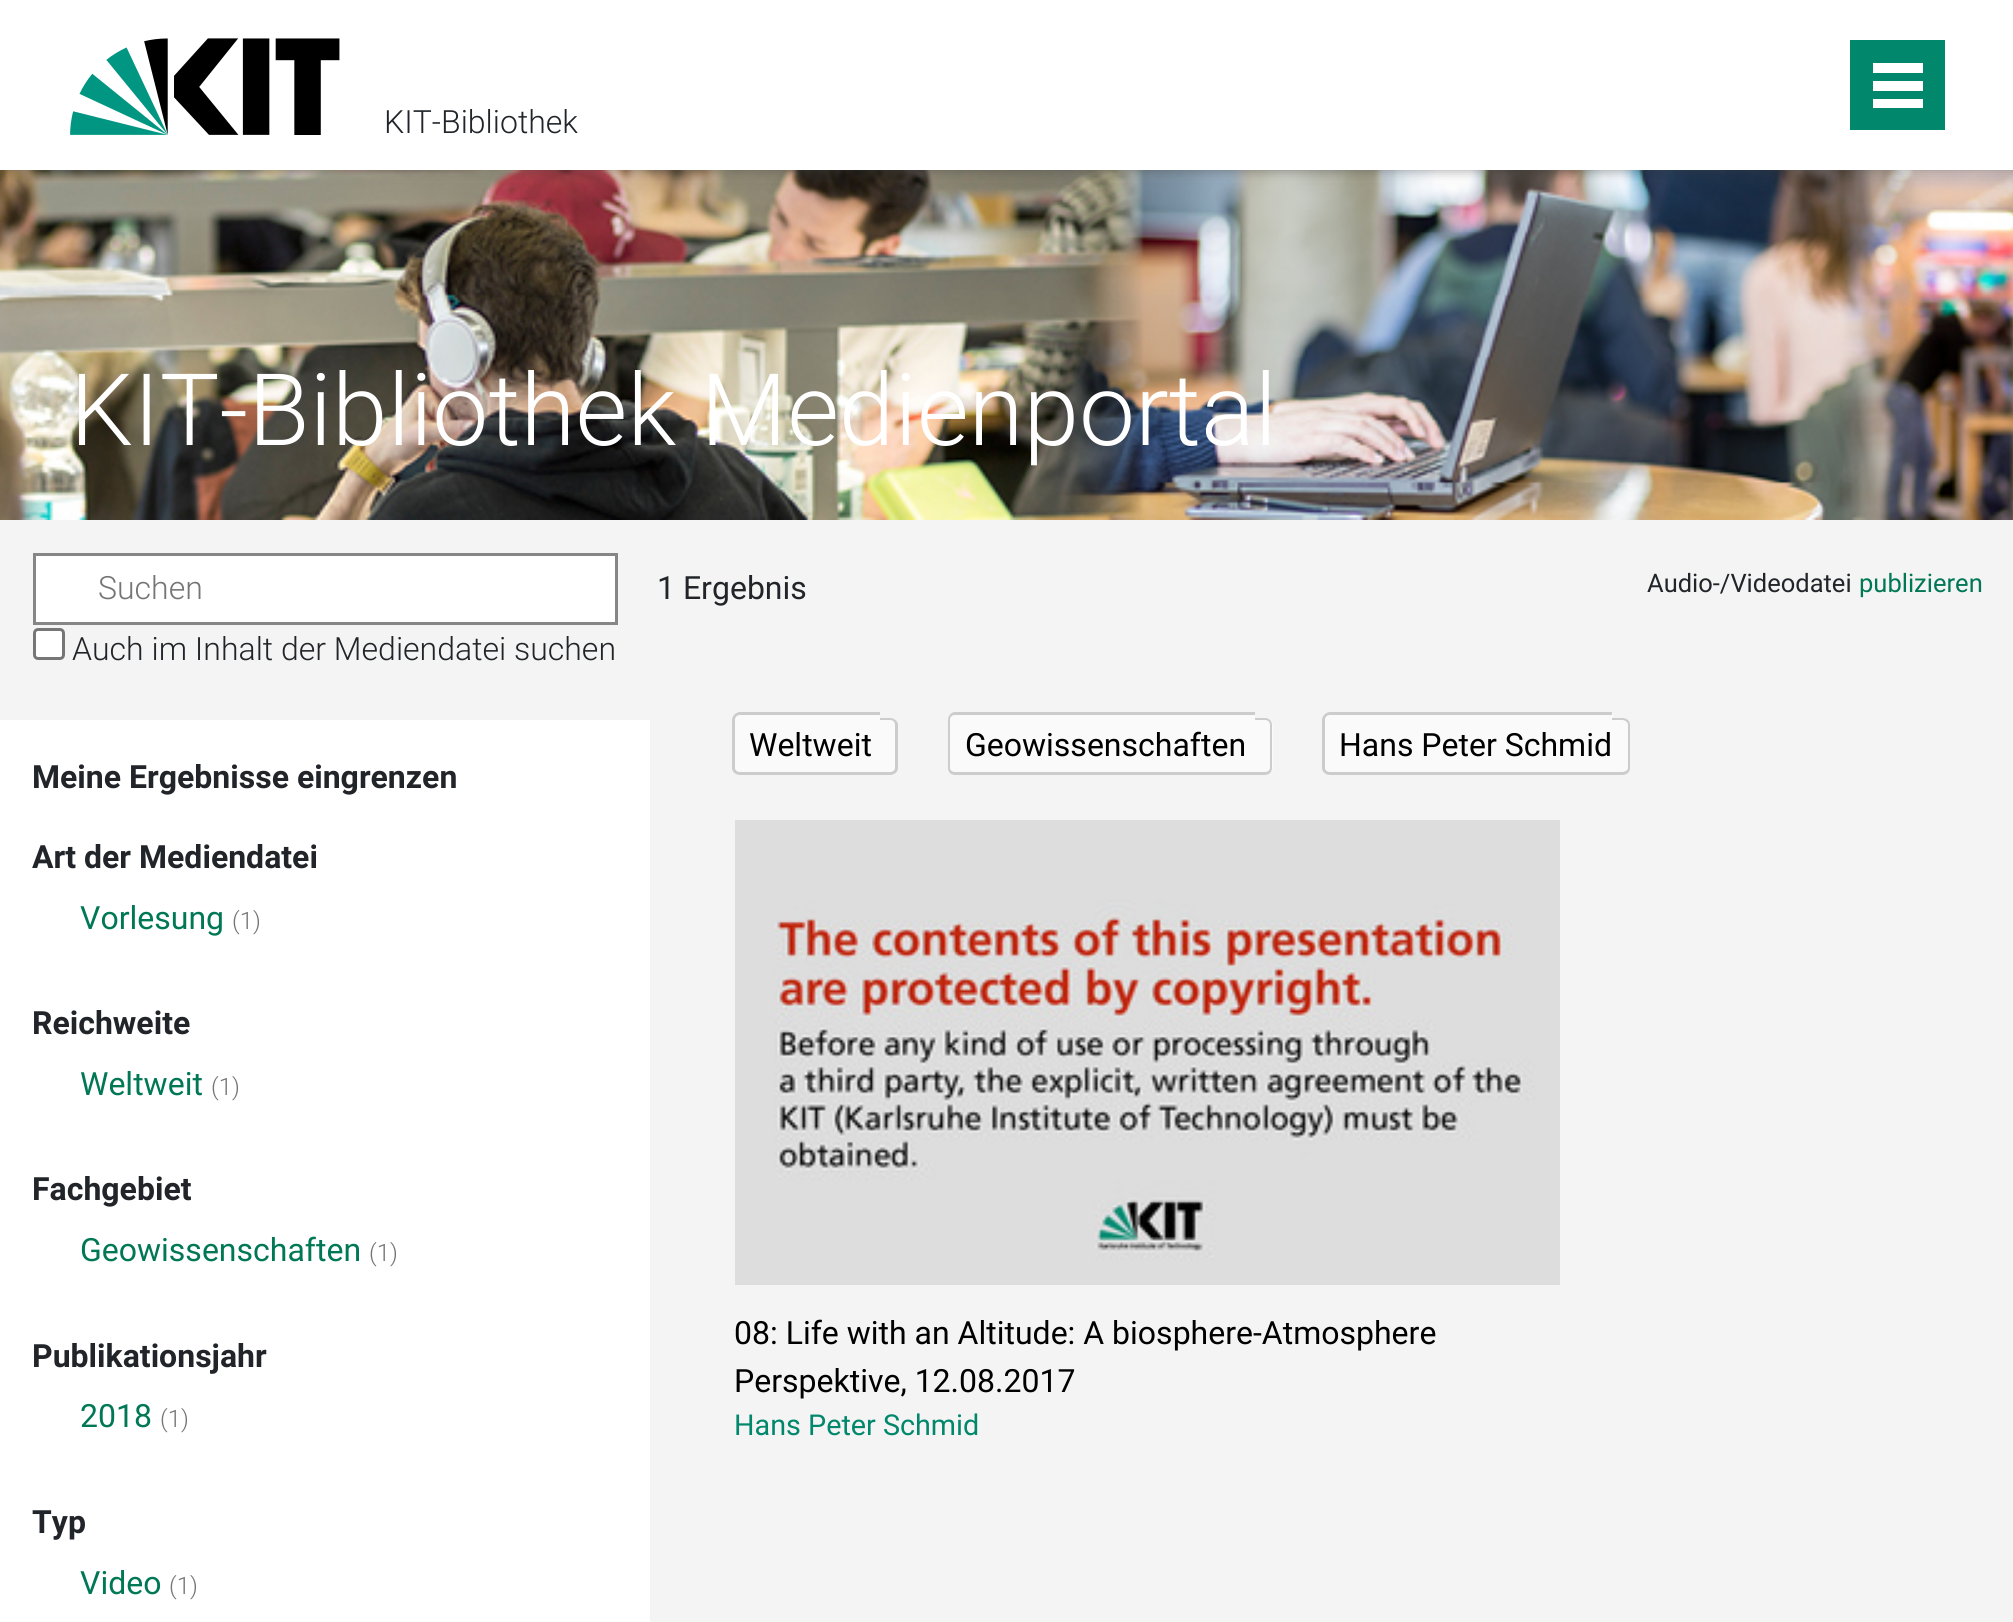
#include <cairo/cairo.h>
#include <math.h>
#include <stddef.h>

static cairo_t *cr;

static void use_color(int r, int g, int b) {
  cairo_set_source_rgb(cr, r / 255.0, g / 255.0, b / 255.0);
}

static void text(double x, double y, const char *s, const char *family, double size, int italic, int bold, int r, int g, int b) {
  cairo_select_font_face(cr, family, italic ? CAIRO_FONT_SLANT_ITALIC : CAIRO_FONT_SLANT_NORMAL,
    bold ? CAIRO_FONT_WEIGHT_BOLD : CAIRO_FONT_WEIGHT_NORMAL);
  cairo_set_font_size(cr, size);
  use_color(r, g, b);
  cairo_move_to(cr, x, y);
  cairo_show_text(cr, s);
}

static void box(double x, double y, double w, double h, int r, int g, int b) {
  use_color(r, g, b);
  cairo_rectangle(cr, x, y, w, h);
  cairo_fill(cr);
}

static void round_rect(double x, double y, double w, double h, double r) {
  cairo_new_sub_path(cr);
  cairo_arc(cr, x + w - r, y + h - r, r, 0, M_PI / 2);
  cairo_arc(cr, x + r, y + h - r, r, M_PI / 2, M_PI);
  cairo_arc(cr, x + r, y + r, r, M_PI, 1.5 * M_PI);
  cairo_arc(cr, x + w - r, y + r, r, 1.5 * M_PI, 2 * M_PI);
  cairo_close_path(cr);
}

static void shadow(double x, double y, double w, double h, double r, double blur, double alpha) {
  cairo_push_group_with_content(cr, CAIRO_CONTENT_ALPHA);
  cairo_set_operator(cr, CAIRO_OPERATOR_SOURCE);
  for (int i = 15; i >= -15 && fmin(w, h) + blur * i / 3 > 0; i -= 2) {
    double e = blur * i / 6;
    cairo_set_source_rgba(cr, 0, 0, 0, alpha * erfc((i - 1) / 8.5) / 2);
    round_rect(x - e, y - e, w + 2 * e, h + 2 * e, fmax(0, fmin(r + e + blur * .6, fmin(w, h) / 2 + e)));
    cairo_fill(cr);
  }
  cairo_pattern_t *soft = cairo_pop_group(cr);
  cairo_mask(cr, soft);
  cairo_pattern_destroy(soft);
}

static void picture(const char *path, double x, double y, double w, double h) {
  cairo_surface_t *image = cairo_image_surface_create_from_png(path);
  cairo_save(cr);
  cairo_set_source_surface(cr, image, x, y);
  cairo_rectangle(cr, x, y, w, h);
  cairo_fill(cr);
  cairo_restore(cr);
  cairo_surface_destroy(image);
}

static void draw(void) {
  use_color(244, 244, 244);
  cairo_paint(cr);
  picture("img_02.png", 0, 170, 2013, 350);
  use_color(64, 64, 64);
  shadow(0, 0, 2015, 170, 0, 6, 0.5);
  box(0, 0, 2013, 170, 255, 255, 255);
  picture("img_01.png", 70, 38, 270, 97);
  box(1850, 40, 95, 90, 0, 135, 108);
  box(1873, 99, 50, 9, 255, 255, 255);
  box(1873, 81, 50, 10, 255, 255, 255);
  box(1873, 63, 50, 10, 255, 255, 255);
  cairo_rectangle(cr, 34.5, 554.5, 582, 69);
  cairo_fill_preserve(cr);
  use_color(134, 134, 134);
  cairo_set_line_width(cr, 3);
  cairo_stroke(cr);
  use_color(255, 255, 255);
  round_rect(34.5, 629.5, 29, 29, 3.5);
  cairo_fill_preserve(cr);
  use_color(118, 118, 118);
  cairo_stroke(cr);
  box(0, 720, 650, 902, 255, 255, 255);
  use_color(250, 250, 250);
  cairo_new_path(cr);
  cairo_move_to(cr, 741, 713);
  cairo_line_to(cr, 880, 713);
  cairo_line_to(cr, 880, 775);
  cairo_line_to(cr, 741, 775);
  cairo_curve_to(cr, 736.5, 775, 733, 771.5, 733, 767);
  cairo_line_to(cr, 733, 721);
  cairo_curve_to(cr, 733, 716.5, 736.5, 713, 741, 713);
  cairo_close_path(cr);
  cairo_fill(cr);
  use_color(204, 204, 204);
  cairo_set_fill_rule(cr, CAIRO_FILL_RULE_EVEN_ODD);
  cairo_new_path(cr);
  cairo_move_to(cr, 740, 712);
  cairo_line_to(cr, 880, 712);
  cairo_line_to(cr, 880, 775);
  cairo_line_to(cr, 740, 775);
  cairo_curve_to(cr, 736, 775, 732, 772, 732, 768);
  cairo_line_to(cr, 732, 720);
  cairo_curve_to(cr, 732, 716, 736, 712, 740, 712);
  cairo_close_path(cr);
  cairo_move_to(cr, 740, 715);
  cairo_line_to(cr, 880, 715);
  cairo_line_to(cr, 880, 772);
  cairo_line_to(cr, 740, 772);
  cairo_curve_to(cr, 737, 772, 735, 770, 735, 768);
  cairo_line_to(cr, 735, 720);
  cairo_curve_to(cr, 735, 717, 737, 715, 740, 715);
  cairo_close_path(cr);
  cairo_fill(cr);
  use_color(250, 250, 250);
  cairo_new_path(cr);
  cairo_move_to(cr, 880, 718);
  cairo_line_to(cr, 890, 718);
  cairo_curve_to(cr, 894.5, 718, 898, 721.5, 898, 726);
  cairo_line_to(cr, 898, 767);
  cairo_curve_to(cr, 898, 771.5, 894.5, 775, 890, 775);
  cairo_line_to(cr, 880, 775);
  cairo_close_path(cr);
  cairo_fill(cr);
  use_color(204, 204, 204);
  cairo_new_path(cr);
  cairo_move_to(cr, 880, 718);
  cairo_line_to(cr, 890, 718);
  cairo_curve_to(cr, 894, 718, 898, 721, 898, 725);
  cairo_line_to(cr, 898, 768);
  cairo_curve_to(cr, 898, 772, 894, 775, 890, 775);
  cairo_line_to(cr, 880, 775);
  cairo_close_path(cr);
  cairo_move_to(cr, 880, 720);
  cairo_line_to(cr, 890, 720);
  cairo_curve_to(cr, 893, 720, 895, 722, 895, 725);
  cairo_line_to(cr, 895, 768);
  cairo_curve_to(cr, 895, 770, 893, 772, 890, 772);
  cairo_line_to(cr, 880, 772);
  cairo_close_path(cr);
  cairo_fill(cr);
  use_color(250, 250, 250);
  cairo_new_path(cr);
  cairo_move_to(cr, 956, 713);
  cairo_line_to(cr, 1255, 713);
  cairo_line_to(cr, 1255, 775);
  cairo_line_to(cr, 956, 775);
  cairo_curve_to(cr, 951.5, 775, 948, 771.5, 948, 767);
  cairo_line_to(cr, 948, 721);
  cairo_curve_to(cr, 948, 716.5, 951.5, 713, 956, 713);
  cairo_close_path(cr);
  cairo_fill(cr);
  use_color(204, 204, 204);
  cairo_new_path(cr);
  cairo_move_to(cr, 955, 712);
  cairo_line_to(cr, 1255, 712);
  cairo_line_to(cr, 1255, 775);
  cairo_line_to(cr, 955, 775);
  cairo_curve_to(cr, 951, 775, 948, 772, 948, 768);
  cairo_line_to(cr, 948, 720);
  cairo_curve_to(cr, 948, 716, 951, 712, 955, 712);
  cairo_close_path(cr);
  cairo_move_to(cr, 955, 715);
  cairo_line_to(cr, 1255, 715);
  cairo_line_to(cr, 1255, 772);
  cairo_line_to(cr, 955, 772);
  cairo_curve_to(cr, 952, 772, 950, 770, 950, 768);
  cairo_line_to(cr, 950, 720);
  cairo_curve_to(cr, 950, 717, 952, 715, 955, 715);
  cairo_close_path(cr);
  cairo_fill(cr);
  use_color(250, 250, 250);
  cairo_new_path(cr);
  cairo_move_to(cr, 1255, 718);
  cairo_line_to(cr, 1265, 718);
  cairo_curve_to(cr, 1269.5, 718, 1273, 721.5, 1273, 726);
  cairo_line_to(cr, 1273, 767);
  cairo_curve_to(cr, 1273, 771.5, 1269.5, 775, 1265, 775);
  cairo_line_to(cr, 1255, 775);
  cairo_close_path(cr);
  cairo_fill(cr);
  use_color(204, 204, 204);
  cairo_new_path(cr);
  cairo_move_to(cr, 1255, 718);
  cairo_line_to(cr, 1265, 718);
  cairo_curve_to(cr, 1269, 718, 1272, 721, 1272, 725);
  cairo_line_to(cr, 1272, 768);
  cairo_curve_to(cr, 1272, 772, 1269, 775, 1265, 775);
  cairo_line_to(cr, 1255, 775);
  cairo_close_path(cr);
  cairo_move_to(cr, 1255, 720);
  cairo_line_to(cr, 1265, 720);
  cairo_curve_to(cr, 1268, 720, 1270, 722, 1270, 725);
  cairo_line_to(cr, 1270, 768);
  cairo_curve_to(cr, 1270, 770, 1268, 772, 1265, 772);
  cairo_line_to(cr, 1255, 772);
  cairo_close_path(cr);
  cairo_fill(cr);
  use_color(250, 250, 250);
  cairo_new_path(cr);
  cairo_move_to(cr, 1331, 713);
  cairo_line_to(cr, 1613, 713);
  cairo_line_to(cr, 1613, 775);
  cairo_line_to(cr, 1331, 775);
  cairo_curve_to(cr, 1326.5, 775, 1323, 771.5, 1323, 767);
  cairo_line_to(cr, 1323, 721);
  cairo_curve_to(cr, 1323, 716.5, 1326.5, 713, 1331, 713);
  cairo_close_path(cr);
  cairo_fill(cr);
  use_color(204, 204, 204);
  cairo_new_path(cr);
  cairo_move_to(cr, 1330, 712);
  cairo_line_to(cr, 1612, 712);
  cairo_line_to(cr, 1612, 775);
  cairo_line_to(cr, 1330, 775);
  cairo_curve_to(cr, 1326, 775, 1322, 772, 1322, 768);
  cairo_line_to(cr, 1322, 720);
  cairo_curve_to(cr, 1322, 716, 1326, 712, 1330, 712);
  cairo_close_path(cr);
  cairo_move_to(cr, 1330, 715);
  cairo_line_to(cr, 1612, 715);
  cairo_line_to(cr, 1612, 772);
  cairo_line_to(cr, 1330, 772);
  cairo_curve_to(cr, 1327, 772, 1325, 770, 1325, 768);
  cairo_line_to(cr, 1325, 720);
  cairo_curve_to(cr, 1325, 717, 1327, 715, 1330, 715);
  cairo_close_path(cr);
  cairo_fill(cr);
  use_color(250, 250, 250);
  cairo_new_path(cr);
  cairo_move_to(cr, 1613, 718);
  cairo_line_to(cr, 1622, 718);
  cairo_curve_to(cr, 1626.5, 718, 1630, 721.5, 1630, 726);
  cairo_line_to(cr, 1630, 767);
  cairo_curve_to(cr, 1630, 771.5, 1626.5, 775, 1622, 775);
  cairo_line_to(cr, 1613, 775);
  cairo_close_path(cr);
  cairo_fill(cr);
  use_color(204, 204, 204);
  cairo_new_path(cr);
  cairo_move_to(cr, 1612, 718);
  cairo_line_to(cr, 1622, 718);
  cairo_curve_to(cr, 1627, 718, 1630, 721, 1630, 725);
  cairo_line_to(cr, 1630, 768);
  cairo_curve_to(cr, 1630, 772, 1627, 775, 1622, 775);
  cairo_line_to(cr, 1612, 775);
  cairo_close_path(cr);
  cairo_move_to(cr, 1612, 720);
  cairo_line_to(cr, 1622, 720);
  cairo_curve_to(cr, 1625, 720, 1628, 722, 1628, 725);
  cairo_line_to(cr, 1628, 768);
  cairo_curve_to(cr, 1628, 770, 1625, 772, 1622, 772);
  cairo_line_to(cr, 1612, 772);
  cairo_close_path(cr);
  cairo_fill(cr);
  picture("img_03.png", 735, 820, 825, 465);
  text(384, 133, "KIT-Bibliothek", "Roboto Light", 32, 0, 0, 33, 37, 41);
  text(70, 445, "KIT-Bibliothek Medienportal", "Roboto Light", 100, 0, 0, 255, 255, 255);
  text(98, 599, "Suchen", "Roboto Light", 32, 0, 0, 117, 117, 117);
  text(657, 599, "1 Ergebnis", "Roboto", 32, 0, 0, 33, 37, 41);
  text(72, 660, "Auch im Inhalt der Mediendatei suchen", "Roboto Light", 32, 0, 0, 33, 37, 41);
  text(1647, 592, "Audio-/Videodatei", "Roboto", 25.5, 0, 0, 33, 37, 41);
  text(1859, 592, "publizieren", "Roboto", 25.5, 0, 0, 0, 119, 85);
  text(32, 788, "Meine Ergebnisse eingrenzen", "Roboto", 32, 0, 1, 33, 37, 41);
  text(32, 868, "Art der Mediendatei", "Roboto", 32, 0, 1, 33, 37, 41);
  text(80, 929, "Vorlesung", "Roboto", 32, 0, 0, 0, 119, 85);
  text(232, 929, "(1)", "Roboto Light", 24, 0, 0, 117, 117, 117);
  text(32, 1034, "Reichweite", "Roboto", 32, 0, 1, 33, 37, 41);
  text(80, 1095, "Weltweit", "Roboto", 32, 0, 0, 0, 119, 85);
  text(211, 1095, "(1)", "Roboto Light", 24, 0, 0, 117, 117, 117);
  text(32, 1200, "Fachgebiet", "Roboto", 32, 0, 1, 33, 37, 41);
  text(80, 1261, "Geowissenschaften", "Roboto", 32, 0, 0, 0, 119, 85);
  text(369, 1261, "(1)", "Roboto Light", 24, 0, 0, 117, 117, 117);
  text(32, 1367, "Publikationsjahr", "Roboto", 32, 0, 1, 33, 37, 41);
  text(80, 1427, "2018", "Roboto", 32, 0, 0, 0, 119, 85);
  text(160, 1427, "(1)", "Roboto Light", 24, 0, 0, 117, 117, 117);
  text(32, 1533, "Typ", "Roboto", 32, 0, 1, 33, 37, 41);
  text(80, 1594, "Video", "Roboto", 32, 0, 0, 0, 119, 85);
  text(169, 1594, "(1)", "Roboto Light", 24, 0, 0, 117, 117, 117);
  text(749, 756, "Weltweit", "Roboto", 32, 0, 0, 0, 0, 0);
  text(965, 756, "Geowissenschaften", "Roboto", 32, 0, 0, 0, 0, 0);
  text(1339, 756, "Hans Peter Schmid", "Roboto", 32, 0, 0, 0, 0, 0);
  text(734, 1344, "08: Life with an Altitude: A biosphere-Atmosphere", "Roboto", 32, 0, 0, 0, 0, 0);
  text(734, 1392, "Perspektive, 12.08.2017", "Roboto", 32, 0, 0, 0, 0, 0);
  text(734, 1435, "Hans Peter Schmid", "Roboto", 28.75, 0, 0, 0, 135, 108);
}

int main(void) {
  cairo_surface_t *surface = cairo_image_surface_create(CAIRO_FORMAT_RGB24, 2013, 1622);
  cr = cairo_create(surface);
  cairo_font_options_t *options = cairo_font_options_create();
  cairo_font_options_set_hint_metrics(options, CAIRO_HINT_METRICS_OFF);
  cairo_font_options_set_hint_style(options, CAIRO_HINT_STYLE_NONE);
  cairo_set_font_options(cr, options);
  cairo_set_miter_limit(cr, 4);
  draw();
  cairo_surface_write_to_png(surface, "out.png");
  cairo_font_options_destroy(options);
  cairo_destroy(cr);
  cairo_surface_destroy(surface);
  return 0;
}
